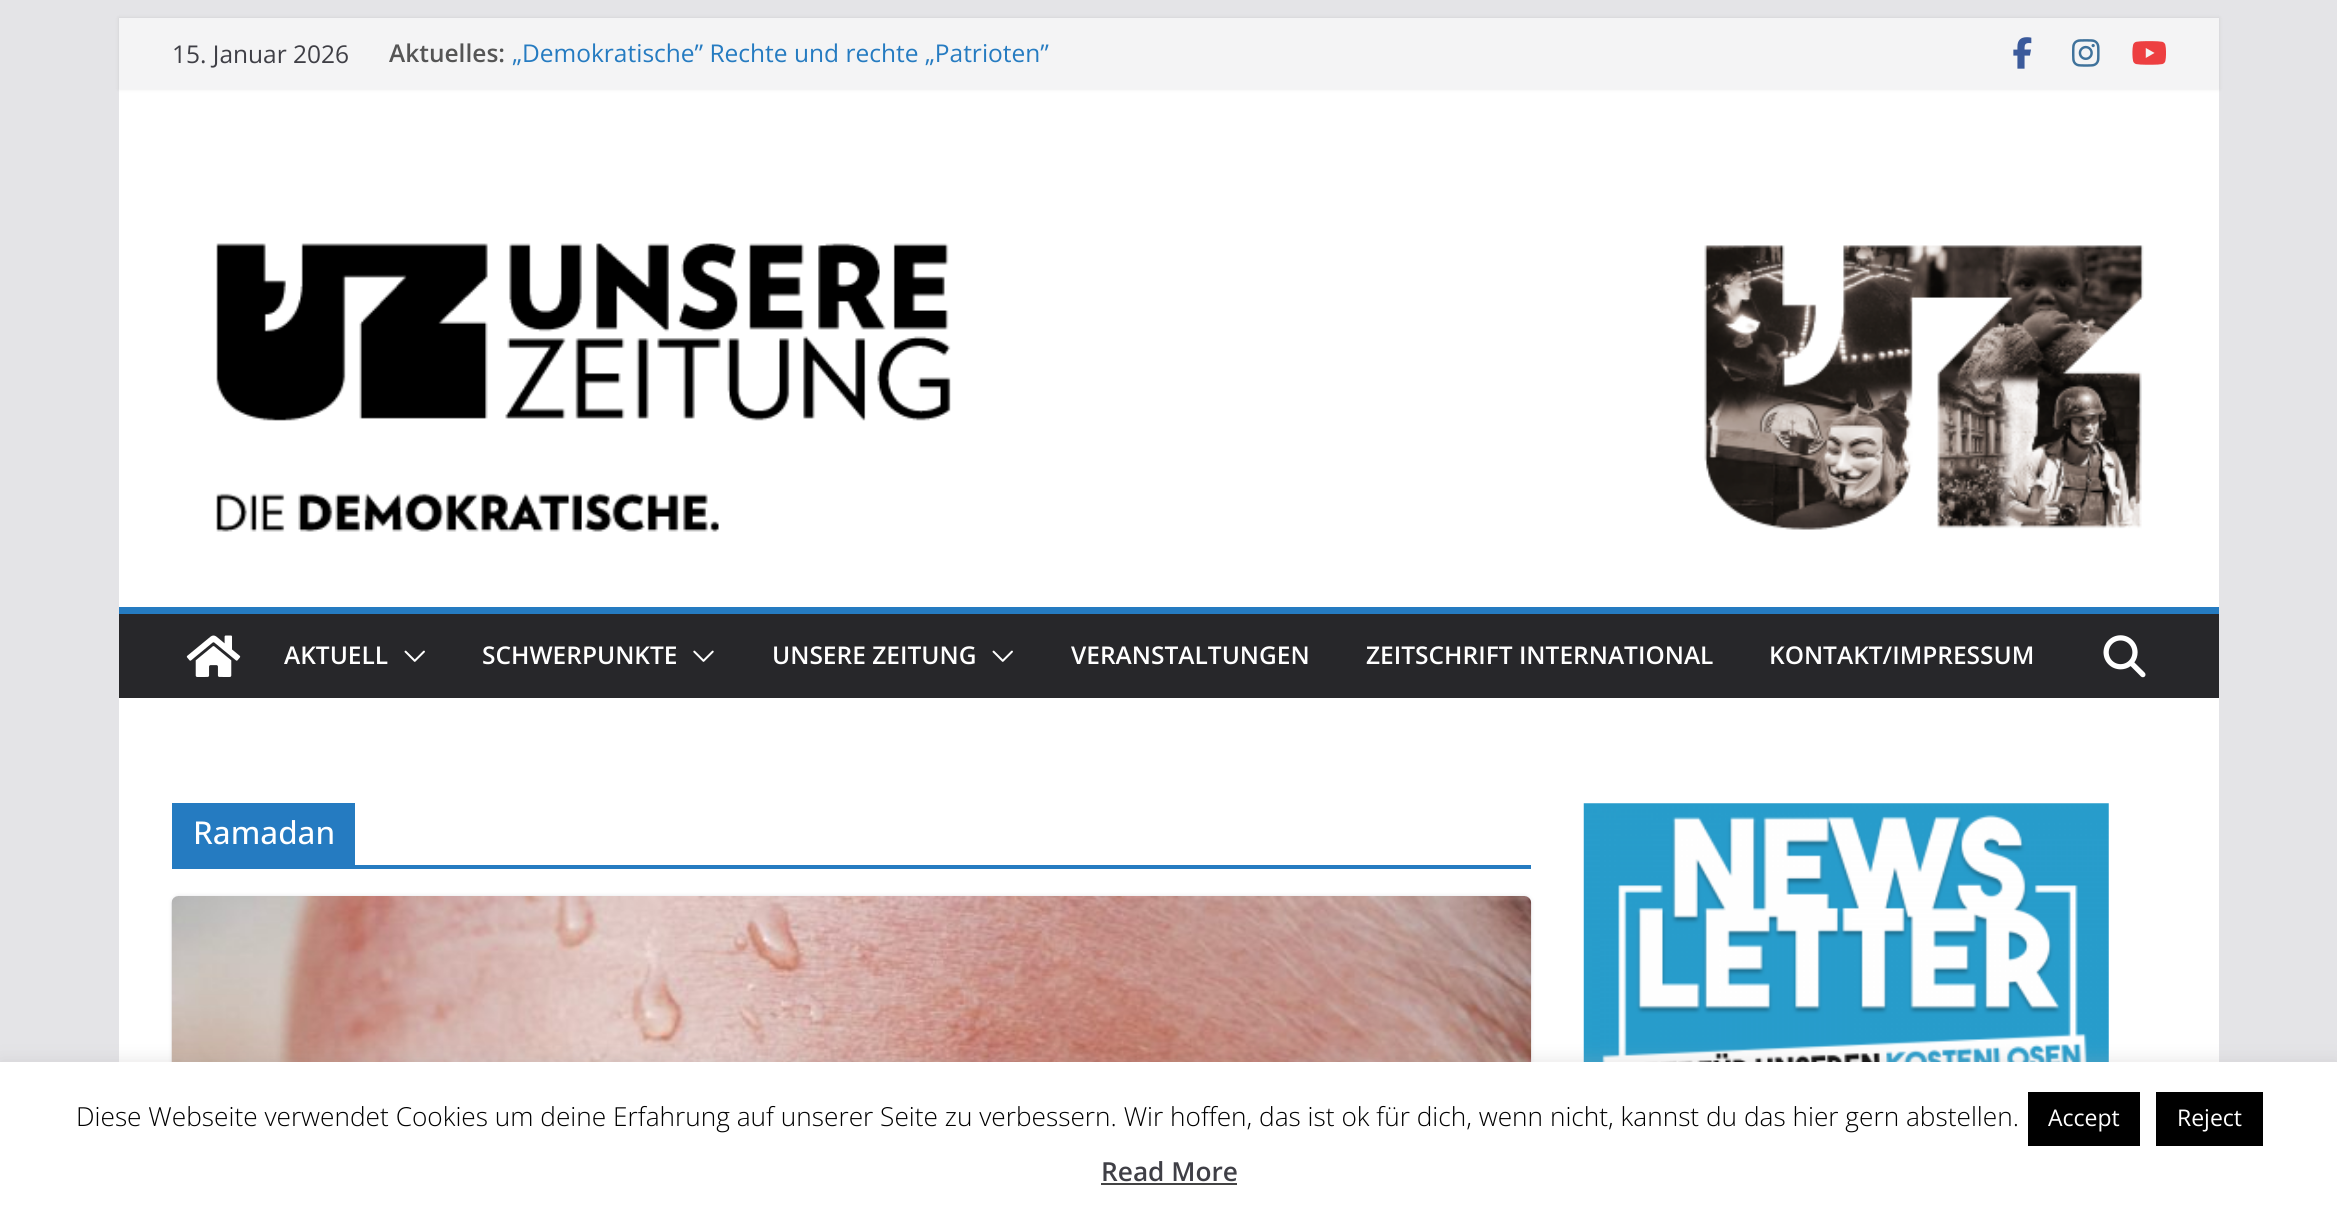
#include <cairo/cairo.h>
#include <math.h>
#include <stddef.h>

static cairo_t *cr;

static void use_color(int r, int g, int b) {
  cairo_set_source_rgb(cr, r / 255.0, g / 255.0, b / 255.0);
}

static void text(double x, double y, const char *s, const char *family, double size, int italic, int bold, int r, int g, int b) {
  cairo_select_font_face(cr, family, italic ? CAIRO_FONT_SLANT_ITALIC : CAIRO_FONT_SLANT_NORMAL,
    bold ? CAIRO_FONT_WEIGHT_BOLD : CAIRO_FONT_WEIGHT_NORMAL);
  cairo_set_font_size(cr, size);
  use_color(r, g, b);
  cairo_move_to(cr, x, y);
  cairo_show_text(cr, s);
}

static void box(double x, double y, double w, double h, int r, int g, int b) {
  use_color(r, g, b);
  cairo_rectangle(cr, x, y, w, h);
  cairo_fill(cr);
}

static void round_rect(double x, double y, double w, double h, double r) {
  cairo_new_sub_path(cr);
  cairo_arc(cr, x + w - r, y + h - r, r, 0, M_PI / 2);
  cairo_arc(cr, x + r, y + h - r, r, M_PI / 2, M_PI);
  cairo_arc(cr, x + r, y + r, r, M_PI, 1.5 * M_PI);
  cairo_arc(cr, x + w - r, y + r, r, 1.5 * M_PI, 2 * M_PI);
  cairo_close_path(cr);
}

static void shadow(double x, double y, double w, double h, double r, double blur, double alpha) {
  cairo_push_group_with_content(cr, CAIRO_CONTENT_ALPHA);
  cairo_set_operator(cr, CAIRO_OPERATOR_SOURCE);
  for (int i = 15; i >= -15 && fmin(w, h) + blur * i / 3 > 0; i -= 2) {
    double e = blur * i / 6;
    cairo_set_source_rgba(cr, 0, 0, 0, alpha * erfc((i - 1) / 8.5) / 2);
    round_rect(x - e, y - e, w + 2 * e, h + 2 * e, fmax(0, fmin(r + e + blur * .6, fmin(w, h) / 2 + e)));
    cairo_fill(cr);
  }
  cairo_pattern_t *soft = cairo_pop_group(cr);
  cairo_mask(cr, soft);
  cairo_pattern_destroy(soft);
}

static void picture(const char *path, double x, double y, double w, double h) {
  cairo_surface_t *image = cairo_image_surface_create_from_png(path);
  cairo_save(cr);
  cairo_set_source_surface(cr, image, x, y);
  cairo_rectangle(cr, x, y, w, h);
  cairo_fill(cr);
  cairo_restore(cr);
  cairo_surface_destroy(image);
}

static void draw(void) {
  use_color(228, 228, 231);
  cairo_paint(cr);
  box(119, 89, 2100, 518, 255, 255, 255);
  use_color(0, 0, 0);
  shadow(119, 18, 2100, 71, 0, 2, 0.1);
  box(119, 18, 2100, 71, 244, 244, 245);
  picture("img_01.png", 2013, 37, 19, 32);
  picture("img_02.png", 2072, 39, 28, 28);
  picture("img_03.png", 2132, 41, 34, 24);
  picture("img_04.png", 216, 243, 1928, 289);
  box(119, 614, 2100, 84, 39, 39, 42);
  box(119, 607, 2100, 7, 37, 123, 193);
  picture("img_05.png", 186, 635, 55, 42);
  picture("img_06.png", 404, 650, 21, 12);
  picture("img_07.png", 693, 650, 21, 12);
  picture("img_06.png", 992, 650, 21, 12);
  picture("img_08.png", 2103, 635, 43, 43);
  box(119, 698, 2100, 364, 255, 255, 255);
  box(172, 865, 1359, 4, 37, 123, 193);
  box(172, 803, 183, 62, 37, 123, 193);
  use_color(228, 228, 231);
  shadow(172, 896, 1359, 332, 7, 2, 1);
  picture("img_09.png", 171, 896, 1361, 166);
  picture("img_10.png", 1583, 803, 526, 259);
  use_color(172, 171, 171);
  shadow(0, 1061, 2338, 154, 0, 9, 0.3);
  box(0, 1062, 2337, 153, 255, 255, 255);
  box(2028, 1092, 112, 54, 0, 0, 0);
  box(2156, 1092, 107, 54, 0, 0, 0);
  box(1101, 1183, 136, 2, 68, 68, 68);
  text(172, 63, "15. Januar 2026", "Open Sans", 24.5, 0, 0, 63, 63, 70);
  text(389, 62, "Aktuelles:", "Open Sans SemiBold", 24.5, 0, 0, 85, 85, 85);
  text(512, 62, "„Demokratische” Rechte und rechte „Patrioten”", "Open Sans", 24.5, 0, 0, 37, 123, 193);
  text(284, 664, "AKTUELL", "Open Sans SemiBold", 24.5, 0, 0, 255, 255, 255);
  text(482, 664, "SCHWERPUNKTE", "Open Sans SemiBold", 24.5, 0, 0, 255, 255, 255);
  text(772, 664, "UNSERE ZEITUNG", "Open Sans SemiBold", 24.5, 0, 0, 255, 255, 255);
  text(1071, 664, "VERANSTALTUNGEN", "Open Sans SemiBold", 24.5, 0, 0, 255, 255, 255);
  text(1366, 664, "ZEITSCHRIFT INTERNATIONAL", "Open Sans SemiBold", 24.5, 0, 0, 255, 255, 255);
  text(1769, 664, "KONTAKT/IMPRESSUM", "Open Sans SemiBold", 24.5, 0, 0, 255, 255, 255);
  text(193, 844, "Ramadan", "Open Sans Medium", 31.5, 0, 0, 255, 255, 255);
  text(76, 1126, "Diese Webseite verwendet Cookies um deine Erfahrung auf unserer Seite zu verbessern. Wir hoffen, das ist ok für dich, wenn nicht, kannst du das hier gern abstellen.", "Open Sans Light", 26.25, 0, 0, 0, 0, 0);
  text(2048, 1126, "Accept", "Open Sans", 23, 0, 0, 255, 255, 255);
  text(2177, 1126, "Reject", "Open Sans", 23, 0, 0, 255, 255, 255);
  text(1101, 1181, "Read More", "Open Sans SemiBold", 26.25, 0, 0, 63, 63, 70);
}

int main(void) {
  cairo_surface_t *surface = cairo_image_surface_create(CAIRO_FORMAT_RGB24, 2337, 1215);
  cr = cairo_create(surface);
  cairo_font_options_t *options = cairo_font_options_create();
  cairo_font_options_set_hint_metrics(options, CAIRO_HINT_METRICS_OFF);
  cairo_font_options_set_hint_style(options, CAIRO_HINT_STYLE_NONE);
  cairo_set_font_options(cr, options);
  cairo_set_miter_limit(cr, 4);
  draw();
  cairo_surface_write_to_png(surface, "out.png");
  cairo_font_options_destroy(options);
  cairo_destroy(cr);
  cairo_surface_destroy(surface);
  return 0;
}
